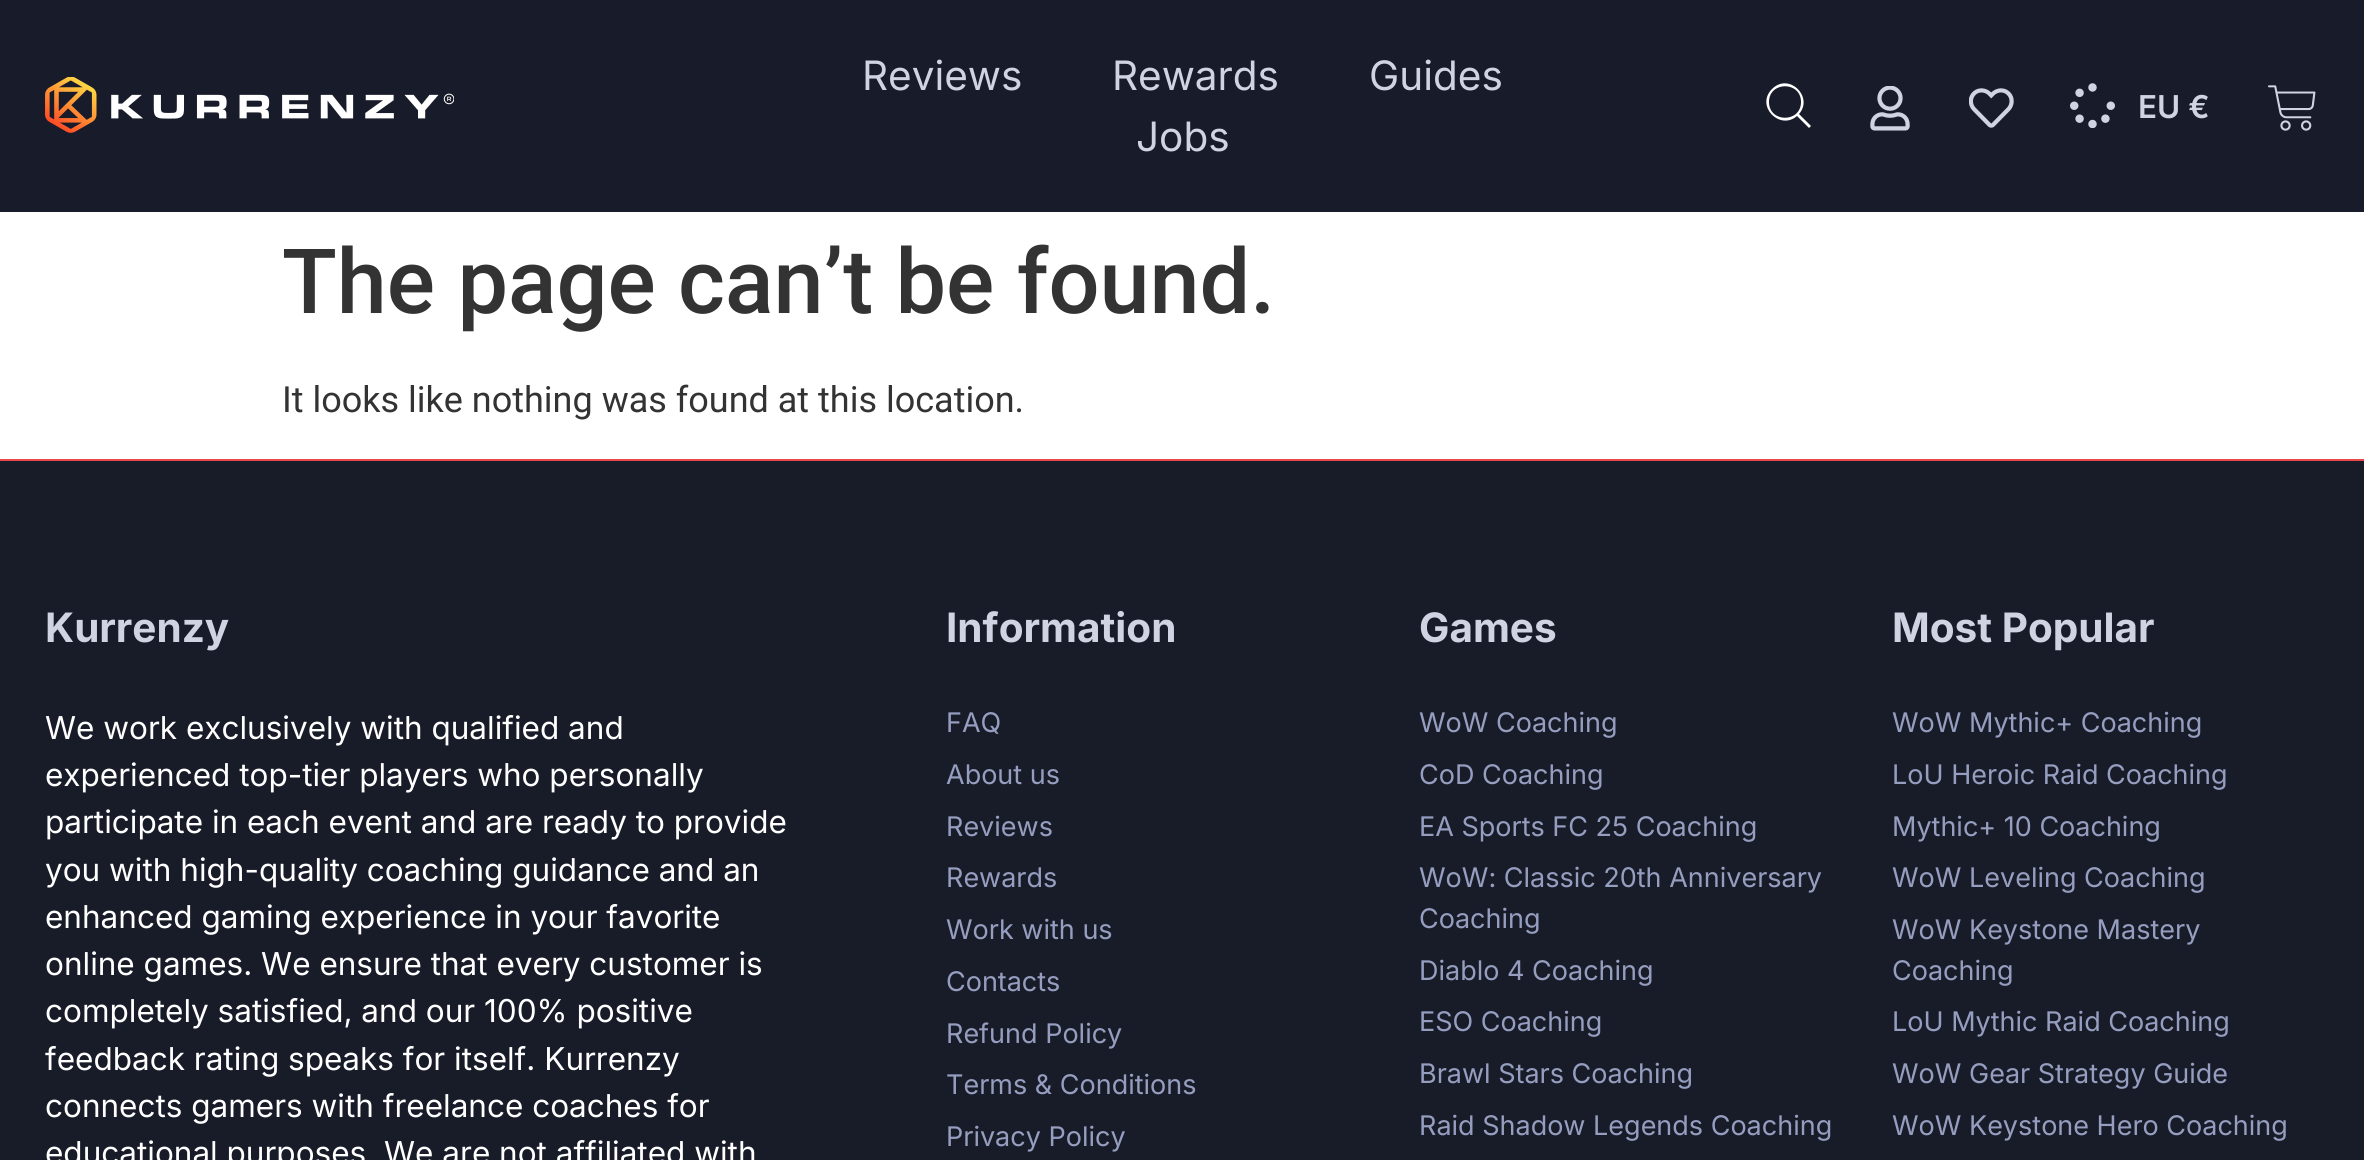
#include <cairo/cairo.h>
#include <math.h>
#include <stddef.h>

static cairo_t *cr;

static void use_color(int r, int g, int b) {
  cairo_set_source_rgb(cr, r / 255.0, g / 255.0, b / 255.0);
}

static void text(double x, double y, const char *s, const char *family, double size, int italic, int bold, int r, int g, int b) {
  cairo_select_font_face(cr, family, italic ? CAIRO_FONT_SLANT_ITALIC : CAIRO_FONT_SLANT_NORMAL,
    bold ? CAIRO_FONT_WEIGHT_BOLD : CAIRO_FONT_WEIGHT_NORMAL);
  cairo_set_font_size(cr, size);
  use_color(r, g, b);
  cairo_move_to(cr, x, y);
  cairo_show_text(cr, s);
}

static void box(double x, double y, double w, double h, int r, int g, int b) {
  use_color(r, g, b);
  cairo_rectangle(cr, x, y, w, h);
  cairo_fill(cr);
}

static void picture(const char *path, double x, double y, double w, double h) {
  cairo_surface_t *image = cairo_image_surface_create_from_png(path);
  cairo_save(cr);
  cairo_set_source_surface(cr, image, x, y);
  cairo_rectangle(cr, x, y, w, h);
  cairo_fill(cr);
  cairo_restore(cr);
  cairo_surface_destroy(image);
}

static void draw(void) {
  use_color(255, 255, 255);
  cairo_paint(cr);
  box(0, 0, 2364, 212, 24, 27, 41);
  picture("img_01.png", 45, 77, 409, 56);
  use_color(255, 255, 255);
  cairo_new_path(cr);
  cairo_move_to(cr, 1811, 126);
  cairo_line_to(cr, 1799, 114);
  cairo_curve_to(cr, 1814, 97, 1789, 72, 1772, 89);
  cairo_curve_to(cr, 1755, 106, 1780, 131, 1797, 116);
  cairo_line_to(cr, 1809, 128);
  cairo_close_path(cr);
  cairo_move_to(cr, 1769, 102);
  cairo_curve_to(cr, 1769, 81, 1801, 81, 1801, 102);
  cairo_curve_to(cr, 1801, 123, 1769, 123, 1769, 102);
  cairo_close_path(cr);
  cairo_fill(cr);
  picture("img_02.png", 1870, 86, 40, 45);
  picture("img_03.png", 1969, 88, 45, 40);
  picture("img_04.png", 2070, 83, 45, 45);
  picture("img_05.png", 2268, 85, 48, 46);
  box(0, 461, 2364, 699, 24, 27, 40);
  box(0, 459, 2364, 2, 232, 72, 76);
  text(862, 90, "Reviews", "Inter", 40.5, 0, 0, 207, 211, 226);
  text(1112, 90, "Rewards", "Inter", 40.5, 0, 0, 207, 211, 226);
  text(1369, 90, "Guides", "Inter", 40.5, 0, 0, 207, 211, 226);
  text(1136, 151, "Jobs", "Inter", 40.5, 0, 0, 207, 211, 226);
  text(2138, 118, "EU €", "Inter SemiBold", 31.5, 0, 0, 207, 211, 226);
  text(282, 313, "The page can’t be found.", "Roboto Medium", 90, 0, 0, 51, 51, 51);
  text(282, 412, "It looks like nothing was found at this location.", "Roboto", 36, 0, 0, 51, 51, 51);
  text(45, 642, "Kurrenzy", "Inter", 40.5, 0, 1, 207, 211, 226);
  text(45, 739, "We work exclusively with qualified and", "Inter", 31.5, 0, 0, 255, 255, 255);
  text(45, 786, "experienced top-tier players who personally", "Inter", 31.5, 0, 0, 255, 255, 255);
  text(45, 833, "participate in each event and are ready to provide", "Inter", 31.5, 0, 0, 255, 255, 255);
  text(45, 881, "you with high-quality coaching guidance and an", "Inter", 31.5, 0, 0, 255, 255, 255);
  text(45, 928, "enhanced gaming experience in your favorite", "Inter", 31.5, 0, 0, 255, 255, 255);
  text(45, 975, "online games. We ensure that every customer is", "Inter", 31.5, 0, 0, 255, 255, 255);
  text(45, 1022, "completely satisfied, and our 100% positive", "Inter", 31.5, 0, 0, 255, 255, 255);
  text(45, 1070, "feedback rating speaks for itself. Kurrenzy", "Inter", 31.5, 0, 0, 255, 255, 255);
  text(45, 1117, "connects gamers with freelance coaches for", "Inter", 31.5, 0, 0, 255, 255, 255);
  text(45, 1164, "educational purposes. We are not affiliated with", "Inter", 31.5, 0, 0, 255, 255, 255);
  text(946, 642, "Information", "Inter", 40.5, 0, 1, 207, 211, 226);
  text(946, 732, "FAQ", "Inter", 27, 0, 0, 150, 158, 192);
  text(946, 784, "About us", "Inter", 27, 0, 0, 150, 158, 192);
  text(946, 836, "Reviews", "Inter", 27, 0, 0, 150, 158, 192);
  text(946, 887, "Rewards", "Inter", 27, 0, 0, 150, 158, 192);
  text(946, 939, "Work with us", "Inter", 27, 0, 0, 150, 158, 192);
  text(946, 991, "Contacts", "Inter", 27, 0, 0, 150, 158, 192);
  text(946, 1043, "Refund Policy", "Inter", 27, 0, 0, 150, 158, 192);
  text(946, 1094, "Terms & Conditions", "Inter", 27, 0, 0, 150, 158, 192);
  text(946, 1146, "Privacy Policy", "Inter", 27, 0, 0, 150, 158, 192);
  text(1419, 642, "Games", "Inter", 40.5, 0, 1, 207, 211, 226);
  text(1419, 732, "WoW Coaching", "Inter", 27, 0, 0, 150, 158, 192);
  text(1419, 784, "CoD Coaching", "Inter", 27, 0, 0, 150, 158, 192);
  text(1419, 836, "EA Sports FC 25 Coaching", "Inter", 27, 0, 0, 150, 158, 192);
  text(1419, 887, "WoW: Classic 20th Anniversary", "Inter", 27, 0, 0, 150, 158, 192);
  text(1419, 928, "Coaching", "Inter", 27, 0, 0, 150, 158, 192);
  text(1419, 980, "Diablo 4 Coaching", "Inter", 27, 0, 0, 150, 158, 192);
  text(1419, 1031, "ESO Coaching", "Inter", 27, 0, 0, 150, 158, 192);
  text(1419, 1083, "Brawl Stars Coaching", "Inter", 27, 0, 0, 150, 158, 192);
  text(1419, 1135, "Raid Shadow Legends Coaching", "Inter", 27, 0, 0, 150, 158, 192);
  text(1892, 642, "Most Popular", "Inter", 40.5, 0, 1, 207, 211, 226);
  text(1892, 732, "WoW Mythic+ Coaching", "Inter", 27, 0, 0, 150, 158, 192);
  text(1892, 784, "LoU Heroic Raid Coaching", "Inter", 27, 0, 0, 150, 158, 192);
  text(1892, 836, "Mythic+ 10 Coaching", "Inter", 27, 0, 0, 150, 158, 192);
  text(1892, 887, "WoW Leveling Coaching", "Inter", 27, 0, 0, 150, 158, 192);
  text(1892, 939, "WoW Keystone Mastery", "Inter", 27, 0, 0, 150, 158, 192);
  text(1892, 980, "Coaching", "Inter", 27, 0, 0, 150, 158, 192);
  text(1892, 1031, "LoU Mythic Raid Coaching", "Inter", 27, 0, 0, 150, 158, 192);
  text(1892, 1083, "WoW Gear Strategy Guide", "Inter", 27, 0, 0, 150, 158, 192);
  text(1892, 1135, "WoW Keystone Hero Coaching", "Inter", 27, 0, 0, 150, 158, 192);
}

int main(void) {
  cairo_surface_t *surface = cairo_image_surface_create(CAIRO_FORMAT_RGB24, 2364, 1160);
  cr = cairo_create(surface);
  cairo_font_options_t *options = cairo_font_options_create();
  cairo_font_options_set_hint_metrics(options, CAIRO_HINT_METRICS_OFF);
  cairo_font_options_set_hint_style(options, CAIRO_HINT_STYLE_NONE);
  cairo_set_font_options(cr, options);
  cairo_set_miter_limit(cr, 4);
  draw();
  cairo_surface_write_to_png(surface, "out.png");
  cairo_font_options_destroy(options);
  cairo_destroy(cr);
  cairo_surface_destroy(surface);
  return 0;
}
